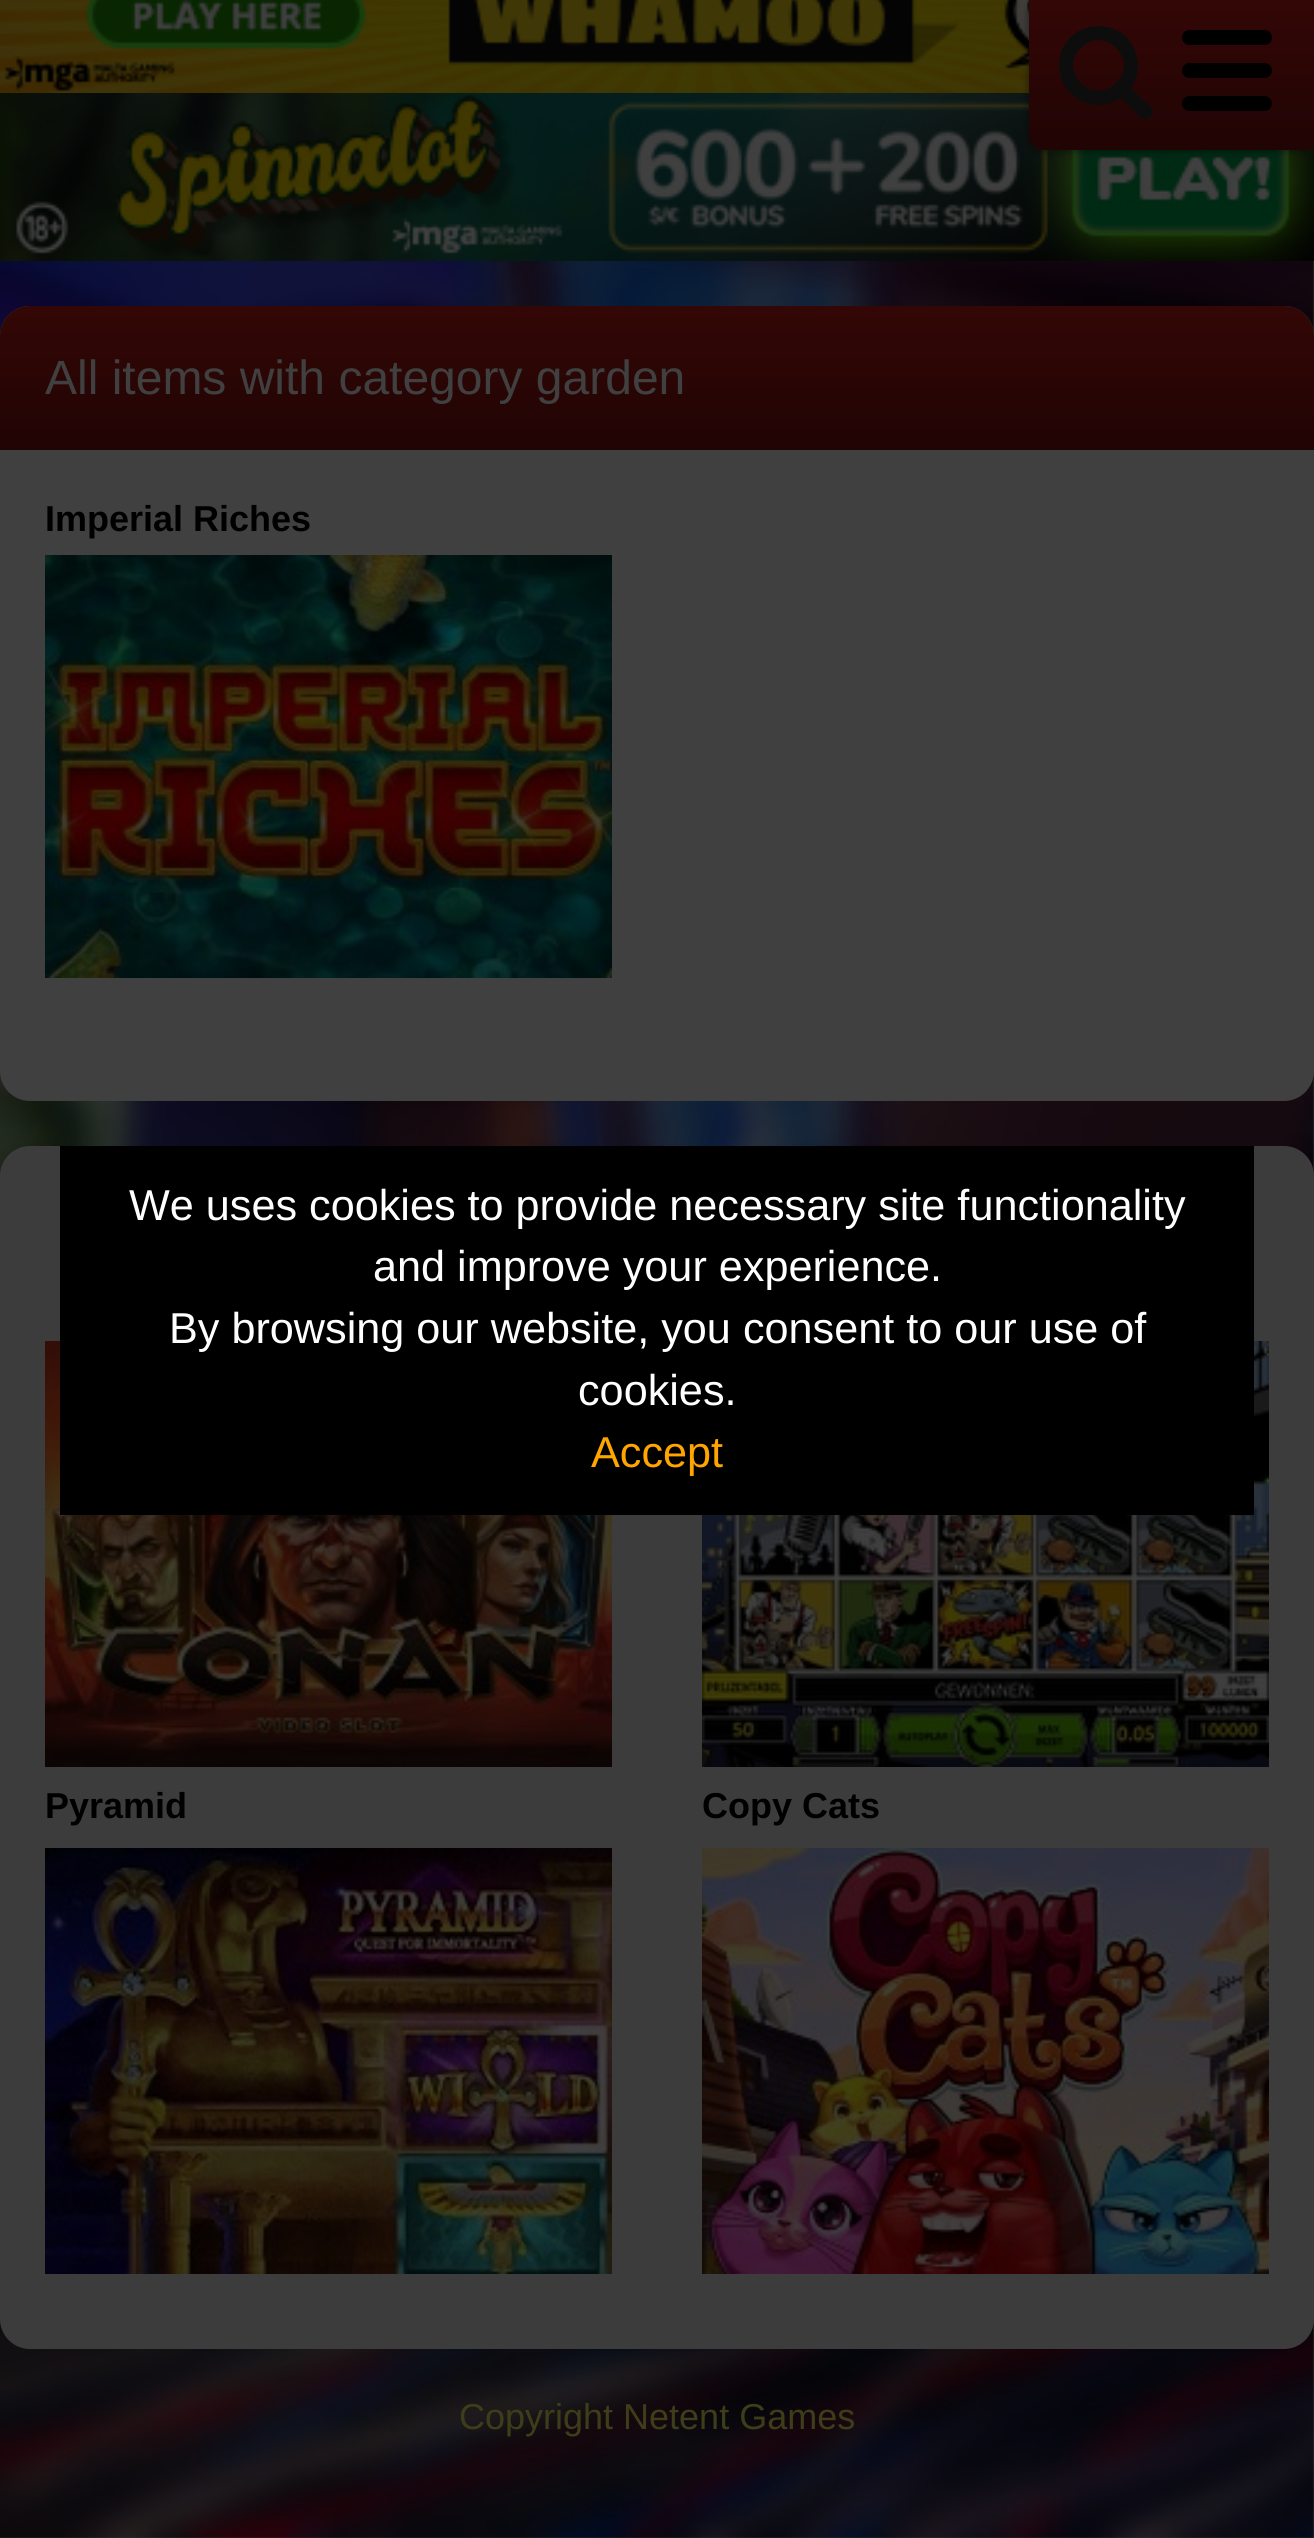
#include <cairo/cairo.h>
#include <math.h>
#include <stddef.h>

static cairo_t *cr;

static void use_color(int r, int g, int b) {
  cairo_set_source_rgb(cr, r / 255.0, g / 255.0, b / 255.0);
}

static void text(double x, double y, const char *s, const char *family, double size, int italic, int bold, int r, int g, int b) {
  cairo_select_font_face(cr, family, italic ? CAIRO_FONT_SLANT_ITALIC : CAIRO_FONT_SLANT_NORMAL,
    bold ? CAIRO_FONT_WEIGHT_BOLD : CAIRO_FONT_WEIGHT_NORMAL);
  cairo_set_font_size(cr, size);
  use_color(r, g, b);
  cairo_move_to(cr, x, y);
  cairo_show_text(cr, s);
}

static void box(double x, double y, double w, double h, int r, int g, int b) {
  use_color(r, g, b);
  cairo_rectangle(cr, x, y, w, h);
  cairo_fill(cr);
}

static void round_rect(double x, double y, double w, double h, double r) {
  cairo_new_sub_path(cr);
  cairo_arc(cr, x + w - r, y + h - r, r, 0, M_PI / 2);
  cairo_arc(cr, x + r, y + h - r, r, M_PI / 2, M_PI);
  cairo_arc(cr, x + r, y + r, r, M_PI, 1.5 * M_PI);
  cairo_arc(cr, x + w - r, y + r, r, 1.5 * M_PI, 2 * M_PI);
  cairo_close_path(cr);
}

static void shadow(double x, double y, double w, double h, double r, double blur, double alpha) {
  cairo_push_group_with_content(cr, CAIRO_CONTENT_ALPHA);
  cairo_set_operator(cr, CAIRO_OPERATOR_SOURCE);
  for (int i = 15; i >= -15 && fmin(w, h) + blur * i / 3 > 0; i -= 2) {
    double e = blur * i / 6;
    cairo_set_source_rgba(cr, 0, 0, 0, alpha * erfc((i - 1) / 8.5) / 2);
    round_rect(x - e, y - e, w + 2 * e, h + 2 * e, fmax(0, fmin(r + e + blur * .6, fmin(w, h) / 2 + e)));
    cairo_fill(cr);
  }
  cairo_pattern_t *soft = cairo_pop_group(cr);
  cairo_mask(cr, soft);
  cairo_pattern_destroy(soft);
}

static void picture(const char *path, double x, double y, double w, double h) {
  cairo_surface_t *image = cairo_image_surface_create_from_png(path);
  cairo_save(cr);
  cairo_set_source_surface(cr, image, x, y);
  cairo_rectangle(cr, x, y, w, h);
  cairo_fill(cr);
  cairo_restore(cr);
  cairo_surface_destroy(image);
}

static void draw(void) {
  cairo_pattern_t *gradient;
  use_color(64, 64, 64);
  cairo_paint(cr);
  picture("img_01.png", 0, 261, 1314, 2277);
  picture("img_02.png", 0, 0, 1029, 93);
  picture("img_03.png", 0, 93, 1314, 168);
  use_color(0, 0, 0);
  shadow(1029, 0, 285, 150, 15, 4.5, 0.5);
  gradient = cairo_pattern_create_linear(1172, 0, 1172, 150);
  cairo_pattern_add_color_stop_rgba(gradient, 0, 0.2, 0.027, 0.024, 1);
  cairo_pattern_add_color_stop_rgba(gradient, 1, 0.129, 0.016, 0.016, 1);
  cairo_set_source(cr, gradient);
  cairo_pattern_destroy(gradient);
  cairo_new_path(cr);
  cairo_move_to(cr, 1029, 0);
  cairo_line_to(cr, 1314, 0);
  cairo_line_to(cr, 1314, 150);
  cairo_line_to(cr, 1044, 150);
  cairo_curve_to(cr, 1035.5, 150, 1029, 143.5, 1029, 135);
  cairo_close_path(cr);
  cairo_fill(cr);
  use_color(13, 13, 13);
  cairo_new_path(cr);
  cairo_move_to(cr, 1116, 83);
  cairo_curve_to(cr, 1140, 60, 1104, 24, 1081, 48);
  cairo_curve_to(cr, 1057, 71, 1093, 107, 1116, 83);
  cairo_close_path(cr);
  cairo_move_to(cr, 1153, 112);
  cairo_curve_to(cr, 1153, 115, 1151, 117, 1149, 118);
  cairo_curve_to(cr, 1143, 123, 1138, 115, 1134, 111);
  cairo_line_to(cr, 1121, 98);
  cairo_curve_to(cr, 1101, 112, 1073, 104, 1063, 83);
  cairo_curve_to(cr, 1059, 74, 1058, 65, 1060, 56);
  cairo_curve_to(cr, 1070, 17, 1125, 16, 1136, 54);
  cairo_curve_to(cr, 1140, 65, 1138, 78, 1131, 88);
  cairo_line_to(cr, 1151, 107);
  cairo_curve_to(cr, 1152, 109, 1153, 110, 1153, 112);
  cairo_close_path(cr);
  cairo_fill(cr);
  use_color(0, 0, 0);
  round_rect(1182, 30, 90, 15, 7.5);
  cairo_fill(cr);
  round_rect(1182, 63, 90, 15, 7.5);
  cairo_fill(cr);
  round_rect(1182, 96, 90, 15, 7.5);
  cairo_fill(cr);
  use_color(64, 64, 64);
  round_rect(0, 306, 1314, 795, 30);
  cairo_fill(cr);
  gradient = cairo_pattern_create_linear(657, 306, 657, 450);
  cairo_pattern_add_color_stop_rgba(gradient, 0, 0.2, 0.027, 0.024, 1);
  cairo_pattern_add_color_stop_rgba(gradient, 1, 0.129, 0.016, 0.016, 1);
  cairo_set_source(cr, gradient);
  cairo_pattern_destroy(gradient);
  cairo_new_path(cr);
  cairo_move_to(cr, 30, 306);
  cairo_line_to(cr, 1284, 306);
  cairo_curve_to(cr, 1300.5, 306, 1314, 319.5, 1314, 336);
  cairo_line_to(cr, 1314, 450);
  cairo_line_to(cr, 0, 450);
  cairo_line_to(cr, 0, 336);
  cairo_curve_to(cr, 0, 319.5, 13.5, 306, 30, 306);
  cairo_close_path(cr);
  cairo_fill(cr);
  picture("img_04.png", 45, 555, 567, 423);
  use_color(60, 60, 60);
  round_rect(0, 1146, 1314, 1203, 30);
  cairo_fill(cr);
  picture("img_05.png", 45, 1341, 567, 426);
  picture("img_06.png", 702, 1341, 567, 426);
  picture("img_07.png", 45, 1848, 567, 426);
  picture("img_08.png", 702, 1848, 567, 426);
  box(60, 1146, 1194, 369, 0, 0, 0);
  text(45, 394, "All items with category garden", "Liberation Sans", 48, 0, 0, 64, 64, 64);
  text(45, 531, "Imperial Riches", "Liberation Sans", 36, 0, 1, 0, 0, 0);
  text(45, 1818, "Pyramid", "Liberation Sans", 36, 0, 1, 0, 0, 0);
  text(702, 1818, "Copy Cats", "Liberation Sans", 36, 0, 1, 0, 0, 0);
  text(129, 1220, "We uses cookies to provide necessary site functionality", "Liberation Sans", 43.2, 0, 0, 255, 255, 255);
  text(373, 1281, "and improve your experience.", "Liberation Sans", 43.2, 0, 0, 255, 255, 255);
  text(169, 1343, "By browsing our website, you consent to our use of", "Liberation Sans", 43.2, 0, 0, 255, 255, 255);
  text(578, 1405, "cookies.", "Liberation Sans", 43.2, 0, 0, 255, 255, 255);
  text(591, 1467, "Accept", "Liberation Sans", 43.2, 0, 0, 255, 165, 0);
  text(459, 2429, "Copyright Netent Games", "Liberation Sans", 36, 0, 0, 61, 61, 25);
}

int main(void) {
  cairo_surface_t *surface = cairo_image_surface_create(CAIRO_FORMAT_RGB24, 1314, 2538);
  cr = cairo_create(surface);
  cairo_font_options_t *options = cairo_font_options_create();
  cairo_font_options_set_hint_metrics(options, CAIRO_HINT_METRICS_OFF);
  cairo_font_options_set_hint_style(options, CAIRO_HINT_STYLE_NONE);
  cairo_set_font_options(cr, options);
  cairo_set_miter_limit(cr, 4);
  draw();
  cairo_surface_write_to_png(surface, "out.png");
  cairo_font_options_destroy(options);
  cairo_destroy(cr);
  cairo_surface_destroy(surface);
  return 0;
}
